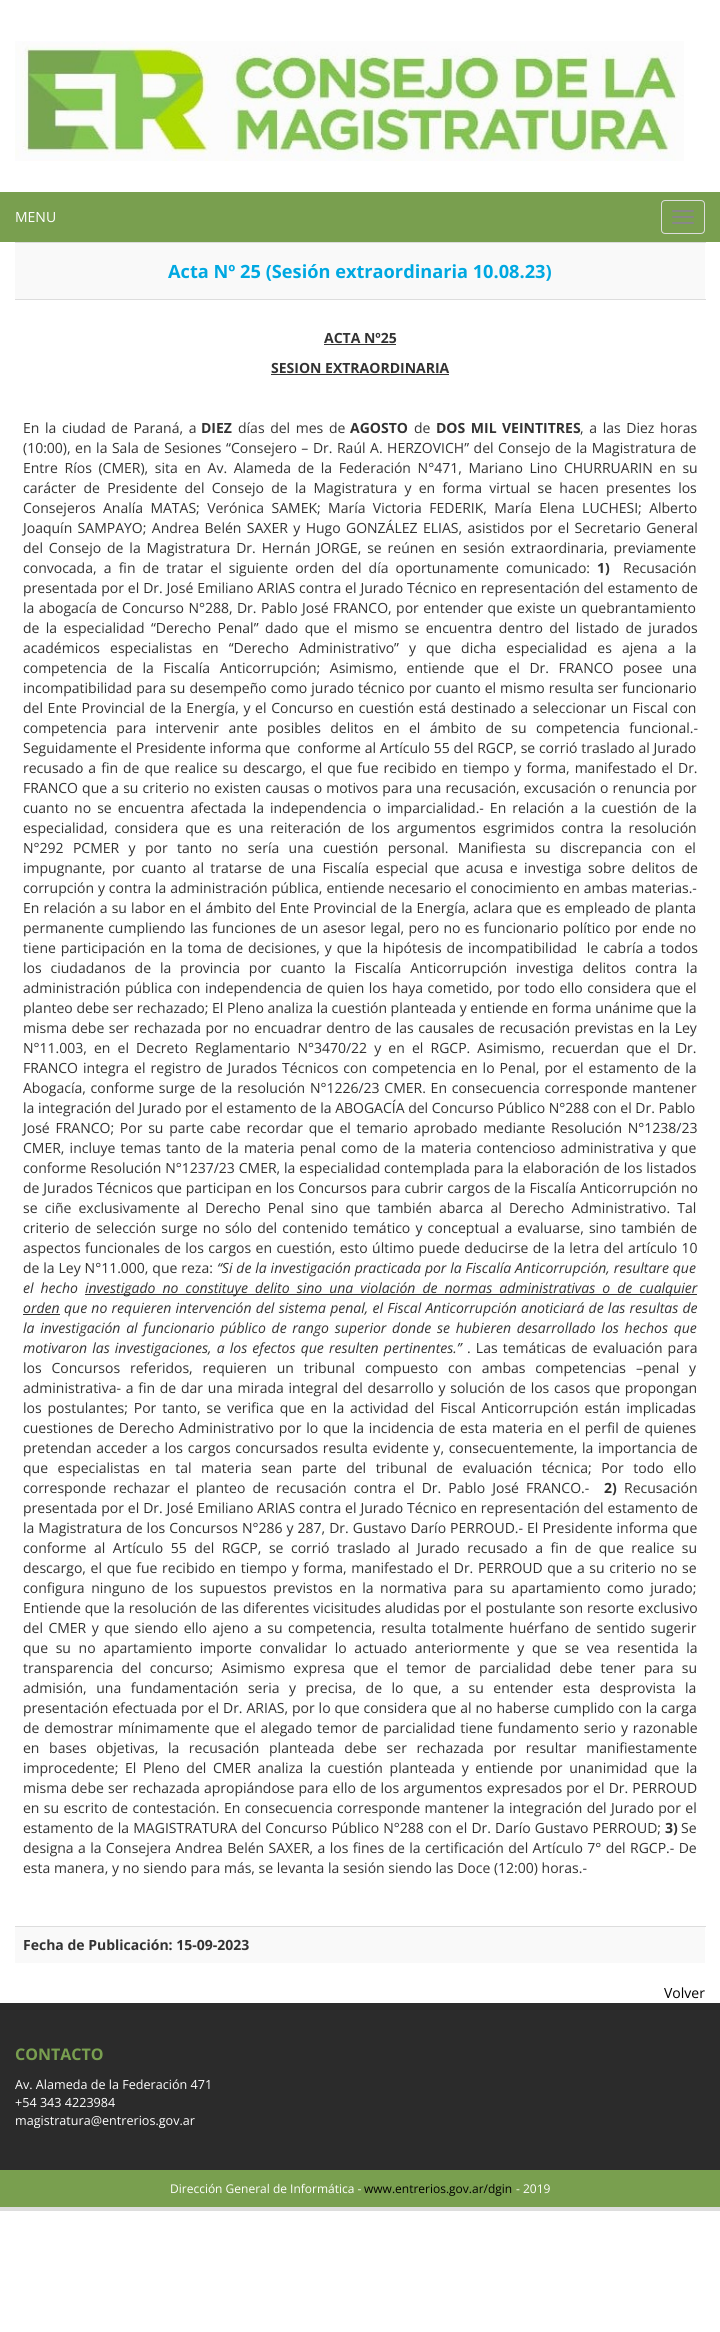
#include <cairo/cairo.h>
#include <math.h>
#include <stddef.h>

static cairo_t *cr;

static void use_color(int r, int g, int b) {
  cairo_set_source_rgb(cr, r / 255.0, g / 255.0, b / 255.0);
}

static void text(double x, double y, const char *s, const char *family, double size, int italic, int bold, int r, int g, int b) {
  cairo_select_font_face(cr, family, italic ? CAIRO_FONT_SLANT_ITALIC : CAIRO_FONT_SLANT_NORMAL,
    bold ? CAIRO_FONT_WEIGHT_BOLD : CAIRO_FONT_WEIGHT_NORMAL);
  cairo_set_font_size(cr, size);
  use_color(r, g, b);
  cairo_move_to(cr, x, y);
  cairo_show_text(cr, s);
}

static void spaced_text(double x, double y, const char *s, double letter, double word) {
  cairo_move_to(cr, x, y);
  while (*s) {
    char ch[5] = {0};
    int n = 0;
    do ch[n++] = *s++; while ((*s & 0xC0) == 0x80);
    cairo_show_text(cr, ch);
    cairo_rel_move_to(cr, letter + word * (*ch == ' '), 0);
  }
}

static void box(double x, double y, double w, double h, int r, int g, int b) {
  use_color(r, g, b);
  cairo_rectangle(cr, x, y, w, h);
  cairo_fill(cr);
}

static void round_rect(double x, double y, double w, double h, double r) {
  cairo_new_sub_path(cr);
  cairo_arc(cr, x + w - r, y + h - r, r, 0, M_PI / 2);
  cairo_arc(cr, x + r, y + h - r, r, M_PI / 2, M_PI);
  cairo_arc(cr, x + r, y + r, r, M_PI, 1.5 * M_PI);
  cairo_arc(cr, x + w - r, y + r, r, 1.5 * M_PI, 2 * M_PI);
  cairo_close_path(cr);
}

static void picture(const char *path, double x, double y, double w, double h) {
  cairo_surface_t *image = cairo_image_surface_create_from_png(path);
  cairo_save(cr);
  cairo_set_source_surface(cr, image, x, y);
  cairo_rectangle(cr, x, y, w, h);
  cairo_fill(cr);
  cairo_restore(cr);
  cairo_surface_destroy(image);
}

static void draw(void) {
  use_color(255, 255, 255);
  cairo_paint(cr);
  picture("img_01.png", 15, 41, 669, 120);
  box(0, 192, 720, 50, 121, 159, 79);
  round_rect(661.5, 200.5, 43, 33, 3.5);
  use_color(221, 221, 221);
  cairo_set_line_width(cr, 1);
  cairo_stroke(cr);
  use_color(136, 136, 136);
  round_rect(672, 210, 22, 2, 1);
  cairo_fill(cr);
  round_rect(672, 216, 22, 2, 1);
  cairo_fill(cr);
  round_rect(672, 222, 22, 2, 1);
  cairo_fill(cr);
  box(15, 243, 690, 56, 249, 249, 249);
  box(15, 242, 691, 1, 221, 221, 221);
  box(15, 299, 691, 1, 221, 221, 221);
  box(324, 344, 72, 1, 51, 51, 51);
  box(271, 374, 178, 1, 51, 51, 51);
  box(85, 1294, 612, 1, 51, 51, 51);
  box(23, 1314, 37, 1, 51, 51, 51);
  box(15, 1927, 690, 36, 249, 249, 249);
  box(15, 1926, 691, 1, 221, 221, 221);
  box(0, 2003, 720, 167, 43, 43, 43);
  box(0, 2170, 720, 37, 121, 159, 79);
  box(0, 2207, 720, 4, 221, 221, 221);
  text(15, 222, "MENU", "Open Sans", 14, 0, 0, 255, 255, 255);
  text(168, 278, "Acta Nº 25 (Sesión extraordinaria 10.08.23)", "Open Sans", 18.2, 0, 1, 0, 168, 225);
  text(324, 343, "ACTA Nº25", "Open Sans", 14, 0, 1, 51, 51, 51);
  text(271, 373, "SESION EXTRAORDINARIA", "Open Sans", 14, 0, 1, 51, 51, 51);
  cairo_select_font_face(cr, "Open Sans", CAIRO_FONT_SLANT_NORMAL, CAIRO_FONT_WEIGHT_NORMAL);
  spaced_text(23, 433, "En la ciudad de Paraná, a", 0, 2);
  text(201, 433, "DIEZ", "Open Sans", 14, 0, 1, 51, 51, 51);
  cairo_select_font_face(cr, "Open Sans", CAIRO_FONT_SLANT_NORMAL, CAIRO_FONT_WEIGHT_NORMAL);
  spaced_text(238, 433, "días del mes de", 0, 2);
  text(350, 433, "AGOSTO", "Open Sans", 14, 0, 1, 51, 51, 51);
  text(414, 433, "de", "Open Sans", 14, 0, 0, 51, 51, 51);
  cairo_select_font_face(cr, "Open Sans", CAIRO_FONT_SLANT_NORMAL, CAIRO_FONT_WEIGHT_BOLD);
  spaced_text(436, 433, "DOS MIL", 0, 2);
  text(502, 433, "VEINTITRES", "Open Sans", 14, 0, 1, 51, 51, 51);
  cairo_select_font_face(cr, "Open Sans", CAIRO_FONT_SLANT_NORMAL, CAIRO_FONT_WEIGHT_NORMAL);
  spaced_text(580, 433, ", a las Diez horas", 0, 2);
  spaced_text(23, 453, "(10:00), en la Sala de Sesiones “Consejero – Dr. Raúl A. HERZOVICH” del Consejo de la Magistratura de", 0, 0.9);
  spaced_text(23, 473, "Entre Ríos (CMER), sita en Av. Alameda de la Federación N°471, Mariano Lino CHURRUARIN en su", 0, 3);
  spaced_text(23, 493, "carácter de Presidente del Consejo de la Magistratura y en forma virtual se hacen presentes los", 0, 3.6);
  spaced_text(23, 513, "Consejeros Analía MATAS; Verónica SAMEK; María Victoria FEDERIK, María Elena LUCHESI; Alberto", 0, 3.75);
  spaced_text(23, 533, "Joaquín SAMPAYO; Andrea Belén SAXER y Hugo GONZÁLEZ ELIAS, asistidos por el Secretario General", 0, 1.75);
  spaced_text(23, 553, "del Consejo de la Magistratura Dr. Hernán JORGE, se reúnen en sesión extraordinaria, previamente", 0, 2.25);
  spaced_text(23, 573, "convocada, a fin de tratar el siguiente orden del día oportunamente comunicado:", 0, 3.5);
  text(597, 573, "1)", "Open Sans", 14, 0, 1, 51, 51, 51);
  text(623, 573, "Recusación", "Open Sans", 14, 0, 0, 51, 51, 51);
  spaced_text(23, 593, "presentada por el Dr. José Emiliano ARIAS contra el Jurado Técnico en representación del estamento de", 0, 0.25);
  spaced_text(23, 613, "la abogacía de Concurso N°288, Dr. Pablo José FRANCO, por entender que existe un quebrantamiento", 0, 0.75);
  spaced_text(23, 633, "de la especialidad “Derecho Penal” dado que el mismo se encuentra dentro del listado de jurados", 0, 2.75);
  spaced_text(23, 653, "académicos especialistas en “Derecho Administrativo” y que dicha especialidad es ajena a la", 0, 6.4);
  spaced_text(23, 673, "competencia de la Fiscalía Anticorrupción; Asimismo, entiende que el Dr. FRANCO posee una", 0, 5.9);
  spaced_text(23, 693, "incompatibilidad para su desempeño como jurado técnico por cuanto el mismo resulta ser funcionario", 0, 0.4);
  spaced_text(23, 713, "del Ente Provincial de la Energía, y el Concurso en cuestión está destinado a seleccionar un Fiscal con", 0, 1);
  spaced_text(23, 733, "competencia para intervenir ante posibles delitos en el ámbito de su competencia funcional.-", 0, 5.75);
  spaced_text(23, 753, "Seguidamente el Presidente informa que  conforme al Artículo 55 del RGCP, se corrió traslado al Jurado", 0, 0.1);
  spaced_text(23, 773, "recusado a fin de que realice su descargo, el que fue recibido en tiempo y forma, manifestado el Dr.", 0, 1.4);
  spaced_text(23, 793, "FRANCO que a su criterio no existen causas o motivos para una recusación, excusación o renuncia por", 0, 0.5);
  spaced_text(23, 813, "cuanto no se encuentra afectada la independencia o imparcialidad.- En relación a la cuestión de la", 0, 2.4);
  spaced_text(23, 833, "especialidad, considera que es una reiteración de los argumentos esgrimidos contra la resolución", 0, 3.25);
  spaced_text(23, 853, "N°292 PCMER y por tanto no sería una cuestión personal. Manifiesta su discrepancia con el", 0, 5.75);
  spaced_text(23, 873, "impugnante, por cuanto al tratarse de una Fiscalía especial que acusa e investiga sobre delitos de", 0, 2.75);
  spaced_text(23, 893, "corrupción y contra la administración pública, entiende necesario el conocimiento en ambas materias.-", 0, 0.3);
  spaced_text(23, 913, "En relación a su labor en el ámbito del Ente Provincial de la Energía, aclara que es empleado de planta", 0, 0.5);
  spaced_text(23, 933, "permanente cumpliendo las funciones de un asesor legal, pero no es funcionario político por ende no", 0, 0.75);
  spaced_text(23, 953, "tiene participación en la toma de decisiones, y que la hipótesis de incompatibilidad  le cabría a todos", 0, 1.25);
  spaced_text(23, 973, "los ciudadanos de la provincia por cuanto la Fiscalía Anticorrupción investiga delitos contra la", 0, 5.25);
  spaced_text(23, 993, "administración pública con independencia de quien los haya cometido, por todo ello considera que el", 0, 0.9);
  text(23, 1013, "planteo debe ser rechazado; El Pleno analiza la cuestión planteada y entiende en forma unánime que la", "Open Sans", 14, 0, 0, 51, 51, 51);
  spaced_text(23, 1033, "misma debe ser rechazada por no encuadrar dentro de las causales de recusación previstas en la Ley", 0, 0.9);
  spaced_text(23, 1053, "N°11.003, en el Decreto Reglamentario N°3470/22 y en el RGCP. Asimismo, recuerdan que el Dr.", 0, 3.5);
  spaced_text(23, 1073, "FRANCO integra el registro de Jurados Técnicos con competencia en lo Penal, por el estamento de la", 0, 1.4);
  spaced_text(23, 1093, "Abogacía, conforme surge de la resolución N°1226/23 CMER. En consecuencia corresponde mantener", 0, 1.1);
  text(23, 1113, "la integración del Jurado por el estamento de la ABOGACÍA del Concurso Público N°288 con el Dr. Pablo", "Open Sans", 14, 0, 0, 51, 51, 51);
  spaced_text(23, 1133, "José FRANCO; Por su parte cabe recordar que el temario aprobado mediante Resolución N°1238/23", 0, 2.1);
  spaced_text(23, 1153, "CMER, incluye temas tanto de la materia penal como de la materia contencioso administrativa y que", 0, 1.5);
  spaced_text(23, 1173, "conforme Resolución N°1237/23 CMER, la especialidad contemplada para la elaboración de los listados", 0, 0.25);
  spaced_text(23, 1193, "de Jurados Técnicos que participan en los Concursos para cubrir cargos de la Fiscalía Anticorrupción no", 0, 0.25);
  spaced_text(23, 1213, "se ciñe exclusivamente al Derecho Penal sino que también abarca al Derecho Administrativo. Tal", 0, 3.5);
  spaced_text(23, 1233, "criterio de selección surge no sólo del contenido temático y conceptual a evaluarse, sino también de", 0, 1.5);
  spaced_text(23, 1253, "aspectos funcionales de los cargos en cuestión, esto último puede deducirse de la letra del artículo 10", 0, 0.75);
  spaced_text(23, 1273, "de la Ley N°11.000, que reza:", 0, 0.25);
  cairo_select_font_face(cr, "Open Sans", CAIRO_FONT_SLANT_ITALIC, CAIRO_FONT_WEIGHT_NORMAL);
  spaced_text(217, 1273, "“Si de la investigación practicada por la Fiscalía Anticorrupción, resultare que", 0, 0.25);
  spaced_text(23, 1293, "el hecho", 0, 3.4);
  spaced_text(85, 1293, "investigado no constituye delito sino una violación de normas administrativas o de cualquier", 0, 3.4);
  text(23, 1313, "orden", "Open Sans", 14, 1, 0, 51, 51, 51);
  spaced_text(64, 1313, "que no requieren intervención del sistema penal, el Fiscal Anticorrupción anoticiará de las resultas de", 0, 0.6);
  spaced_text(23, 1333, "la investigación al funcionario público de rango superior donde se hubieren desarrollado los hechos que", 0, 2.1);
  spaced_text(23, 1353, "motivaron las investigaciones, a los efectos que resulten pertinentes.”", 0, 1.5);
  cairo_select_font_face(cr, "Open Sans", CAIRO_FONT_SLANT_NORMAL, CAIRO_FONT_WEIGHT_NORMAL);
  spaced_text(467, 1353, ". Las temáticas de evaluación para", 0, 1.5);
  spaced_text(23, 1373, "los Concursos referidos, requieren un tribunal compuesto con ambas competencias –penal y", 0, 6.25);
  spaced_text(23, 1393, "administrativa- a fin de dar una mirada integral del desarrollo y solución de los casos que propongan", 0, 1.1);
  spaced_text(23, 1413, "los postulantes; Por tanto, se verifica que en la actividad del Fiscal Anticorrupción están implicadas", 0, 2.25);
  spaced_text(23, 1433, "cuestiones de Derecho Administrativo por lo que la incidencia de esta materia en el perfil de quienes", 0, 1.1);
  spaced_text(23, 1453, "pretendan acceder a los cargos concursados resulta evidente y, consecuentemente, la importancia de", 0, 1);
  spaced_text(23, 1473, "que especialistas en tal materia sean parte del tribunal de evaluación técnica; Por todo ello", 0, 5.9);
  spaced_text(23, 1493, "corresponde rechazar el planteo de recusación contra el Dr. Pablo José FRANCO.-", 0, 3.5);
  text(604, 1493, "2)", "Open Sans", 14, 0, 1, 51, 51, 51);
  text(624, 1493, "Recusación", "Open Sans", 14, 0, 0, 51, 51, 51);
  spaced_text(23, 1513, "presentada por el Dr. José Emiliano ARIAS contra el Jurado Técnico en representación del estamento de", 0, 0.25);
  spaced_text(23, 1533, "la Magistratura de los Concursos N°286 y 287, Dr. Gustavo Darío PERROUD.- El Presidente informa que", 0, 0.4);
  spaced_text(23, 1553, "conforme al Artículo 55 del RGCP, se corrió traslado al Jurado recusado a fin de que realice su", 0, 3.9);
  spaced_text(23, 1573, "descargo, el que fue recibido en tiempo y forma, manifestado el Dr. PERROUD que a su criterio no se", 0, 1);
  spaced_text(23, 1593, "configura ninguno de los supuestos previstos en la normativa para su apartamiento como jurado;", 0, 2.9);
  spaced_text(23, 1613, "Entiende que la resolución de las diferentes vicisitudes aludidas por el postulante son resorte exclusivo", 0, 0.25);
  spaced_text(23, 1633, "del CMER y que siendo ello ajeno a su competencia, resulta totalmente huérfano de sentido sugerir", 0, 1.8);
  spaced_text(23, 1653, "que su no apartamiento importe convalidar lo actuado anteriormente y que se vea resentida la", 0, 4);
  spaced_text(23, 1673, "transparencia del concurso; Asimismo expresa que el temor de parcialidad debe tener para su", 0, 4.6);
  spaced_text(23, 1693, "admisión, una fundamentación seria y precisa, de lo que, a su entender esta desprovista la", 0, 5.9);
  spaced_text(23, 1713, "presentación efectuada por el Dr. ARIAS, por lo que considera que al no haberse cumplido con la carga", 0, 0.3);
  spaced_text(23, 1733, "de demostrar mínimamente que el alegado temor de parcialidad tiene fundamento serio y razonable", 0, 1.25);
  spaced_text(23, 1753, "en bases objetivas, la recusación planteada debe ser rechazada por resultar manifiestamente", 0, 6);
  spaced_text(23, 1773, "improcedente; El Pleno del CMER analiza la cuestión planteada y entiende por unanimidad que la", 0, 3);
  spaced_text(23, 1793, "misma debe ser rechazada apropiándose para ello de los argumentos expresados por el Dr. PERROUD", 0, 0.5);
  spaced_text(23, 1813, "en su escrito de contestación. En consecuencia corresponde mantener la integración del Jurado por el", 0, 0.75);
  spaced_text(23, 1833, "estamento de la MAGISTRATURA del Concurso Público N°288 con el Dr. Darío Gustavo PERROUD;", 0, 0.5);
  text(665, 1833, "3)", "Open Sans", 14, 0, 1, 51, 51, 51);
  text(681, 1833, "Se", "Open Sans", 14, 0, 0, 51, 51, 51);
  spaced_text(23, 1853, "designa a la Consejera Andrea Belén SAXER, a los fines de la certificación del Artículo 7° del RGCP.- De", 0, 0.75);
  text(23, 1873, "esta manera, y no siendo para más, se levanta la sesión siendo las Doce (12:00) horas.-", "Open Sans", 14, 0, 0, 51, 51, 51);
  text(23, 1950, "Fecha de Publicación: 15-09-2023", "Open Sans", 14, 0, 1, 51, 51, 51);
  text(664, 1998, "Volver", "Open Sans", 14, 0, 0, 0, 0, 0);
  text(15, 2060, "CONTACTO", "Open Sans", 16, 0, 1, 121, 159, 79);
  text(15, 2089, "Av. Alameda de la Federación 471", "Open Sans", 12.6, 0, 0, 255, 255, 255);
  text(15, 2107, "+54 343 4223984", "Open Sans", 12.6, 0, 0, 255, 255, 255);
  text(15, 2125, "magistratura@entrerios.gov.ar", "Open Sans", 12.6, 0, 0, 255, 255, 255);
  text(170, 2193, "Dirección General de Informática -", "Open Sans", 12, 0, 0, 255, 255, 255);
  text(364, 2193, "www.entrerios.gov.ar/dgin", "Open Sans", 12, 0, 0, 0, 0, 0);
  text(516, 2193, "- 2019", "Open Sans", 12, 0, 0, 255, 255, 255);
}

int main(void) {
  cairo_surface_t *surface = cairo_image_surface_create(CAIRO_FORMAT_RGB24, 720, 2332);
  cr = cairo_create(surface);
  cairo_font_options_t *options = cairo_font_options_create();
  cairo_font_options_set_hint_metrics(options, CAIRO_HINT_METRICS_OFF);
  cairo_font_options_set_hint_style(options, CAIRO_HINT_STYLE_NONE);
  cairo_set_font_options(cr, options);
  cairo_set_miter_limit(cr, 4);
  draw();
  cairo_surface_write_to_png(surface, "out.png");
  cairo_font_options_destroy(options);
  cairo_destroy(cr);
  cairo_surface_destroy(surface);
  return 0;
}
